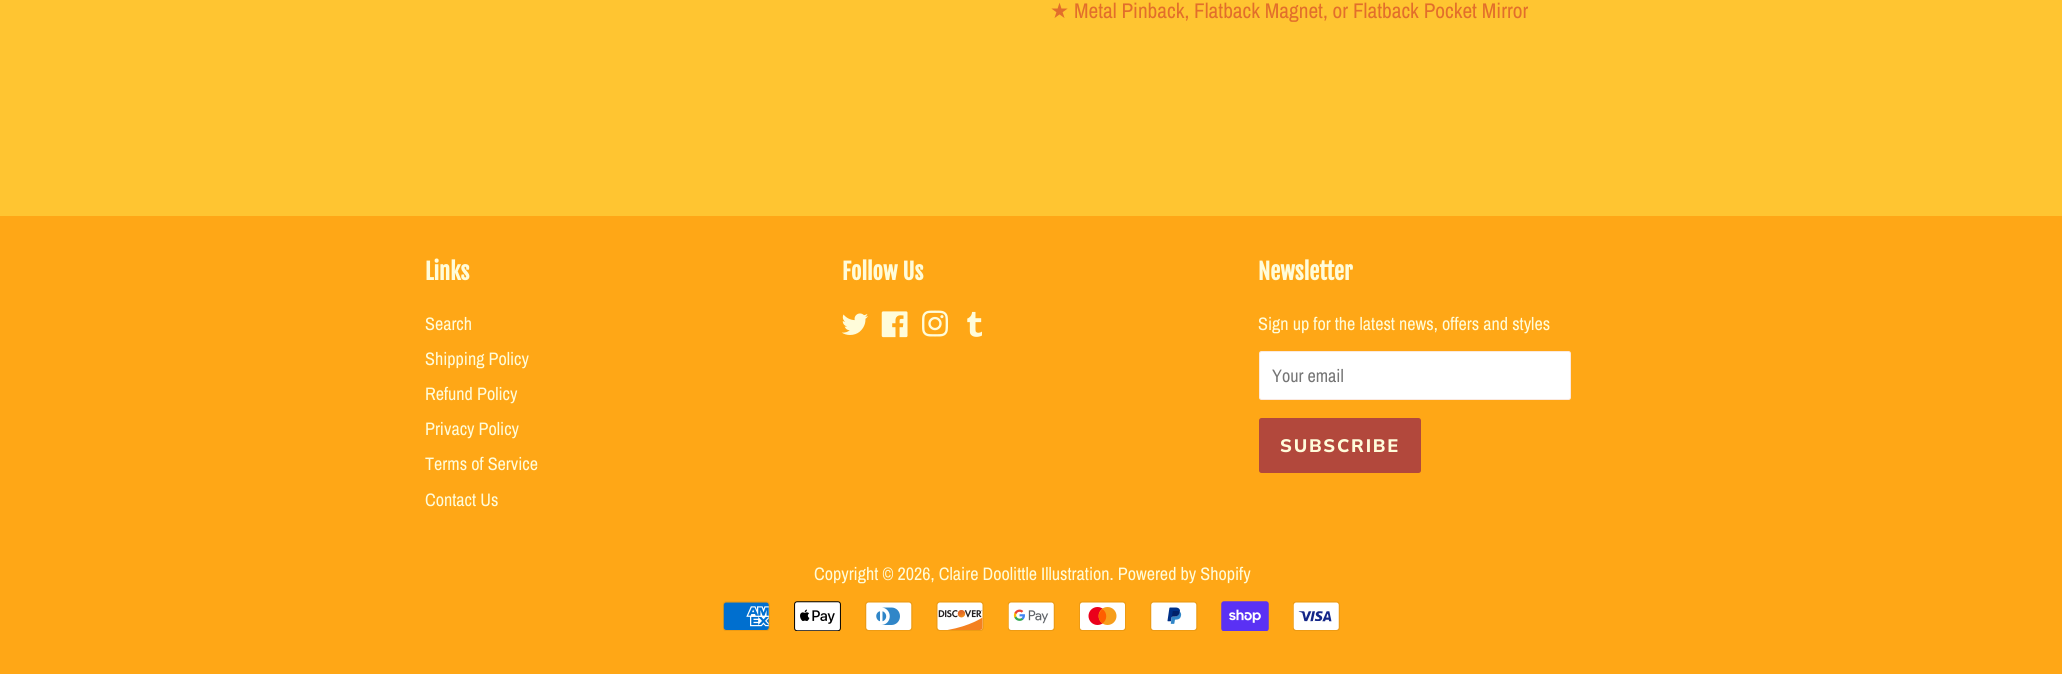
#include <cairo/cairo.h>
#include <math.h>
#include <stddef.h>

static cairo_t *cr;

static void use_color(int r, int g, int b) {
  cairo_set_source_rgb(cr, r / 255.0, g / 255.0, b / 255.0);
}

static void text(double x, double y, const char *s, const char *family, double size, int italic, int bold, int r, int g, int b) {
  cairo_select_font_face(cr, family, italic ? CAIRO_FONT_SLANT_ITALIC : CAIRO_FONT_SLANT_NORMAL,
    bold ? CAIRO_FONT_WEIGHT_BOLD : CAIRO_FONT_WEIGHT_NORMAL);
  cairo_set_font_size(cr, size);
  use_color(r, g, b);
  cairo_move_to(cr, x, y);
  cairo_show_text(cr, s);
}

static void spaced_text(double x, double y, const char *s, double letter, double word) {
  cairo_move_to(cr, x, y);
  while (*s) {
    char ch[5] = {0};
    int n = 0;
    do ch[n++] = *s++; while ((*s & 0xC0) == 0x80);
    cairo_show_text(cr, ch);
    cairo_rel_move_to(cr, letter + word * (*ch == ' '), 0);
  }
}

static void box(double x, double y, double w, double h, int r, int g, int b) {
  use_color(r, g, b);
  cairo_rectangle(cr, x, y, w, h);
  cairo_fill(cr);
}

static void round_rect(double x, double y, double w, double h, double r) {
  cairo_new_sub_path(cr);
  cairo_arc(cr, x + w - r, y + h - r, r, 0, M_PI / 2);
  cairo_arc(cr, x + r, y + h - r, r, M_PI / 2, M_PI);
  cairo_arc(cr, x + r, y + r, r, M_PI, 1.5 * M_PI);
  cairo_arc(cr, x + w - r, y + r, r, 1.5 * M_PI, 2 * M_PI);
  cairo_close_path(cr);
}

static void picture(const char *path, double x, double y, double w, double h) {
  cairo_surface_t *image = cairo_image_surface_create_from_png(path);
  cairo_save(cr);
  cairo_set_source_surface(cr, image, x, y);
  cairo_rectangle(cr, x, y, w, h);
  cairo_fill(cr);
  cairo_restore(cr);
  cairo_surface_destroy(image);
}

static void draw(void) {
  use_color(255, 197, 49);
  cairo_paint(cr);
  box(0, 216, 2062, 458, 255, 167, 22);
  picture("img_01.png", 841, 313, 27, 22);
  picture("img_02.png", 881, 311, 27, 27);
  picture("img_03.png", 922, 310, 26, 27);
  picture("img_04.png", 967, 311, 15, 26);
  use_color(255, 255, 255);
  round_rect(1259, 351, 312, 49, 2.5);
  cairo_fill(cr);
  round_rect(1259.5, 351.5, 311, 48, 2);
  cairo_set_source_rgba(cr, 0.886, 0.431, 0.169, 0.15);
  cairo_set_line_width(cr, 1);
  cairo_stroke(cr);
  use_color(178, 72, 60);
  round_rect(1259, 418, 162, 55, 2.5);
  cairo_fill(cr);
  picture("img_05.png", 723, 601, 47, 30);
  picture("img_06.png", 794, 601, 47, 30);
  picture("img_07.png", 865, 601, 48, 30);
  picture("img_08.png", 936, 601, 48, 30);
  picture("img_09.png", 1008, 601, 47, 30);
  picture("img_10.png", 1079, 601, 47, 30);
  picture("img_11.png", 1150, 601, 48, 30);
  picture("img_12.png", 1221, 601, 48, 30);
  picture("img_13.png", 1293, 601, 47, 30);
  text(1050, 18, "★", "DejaVu Sans", 21.25, 0, 0, 226, 110, 43);
  text(1074, 18, "Metal Pinback, Flatback Magnet, or Flatback Pocket Mirror", "Archivo Narrow", 21.25, 0, 0, 226, 110, 43);
  text(425, 280, "Links", "Fjalla One", 22.5, 0, 1, 255, 252, 218);
  text(425, 330, "Search", "Archivo Narrow", 18.1, 0, 0, 255, 252, 218);
  text(425, 365, "Shipping Policy", "Archivo Narrow", 18.1, 0, 0, 255, 252, 218);
  text(425, 400, "Refund Policy", "Archivo Narrow", 18.1, 0, 0, 255, 252, 218);
  text(425, 435, "Privacy Policy", "Archivo Narrow", 18.1, 0, 0, 255, 252, 218);
  text(425, 470, "Terms of Service", "Archivo Narrow", 18.1, 0, 0, 255, 252, 218);
  text(425, 506, "Contact Us", "Archivo Narrow", 18.1, 0, 0, 255, 252, 218);
  text(842, 280, "Follow Us", "Fjalla One", 22.5, 0, 1, 255, 252, 218);
  text(1258, 280, "Newsletter", "Fjalla One", 22.5, 0, 1, 255, 252, 218);
  text(1258, 330, "Sign up for the latest news, offers and styles", "Archivo Narrow", 18.1, 0, 0, 255, 252, 218);
  text(1272, 382, "Your email", "Archivo Narrow", 18.1, 0, 0, 117, 117, 117);
  cairo_select_font_face(cr, "Muli ExtraBold", CAIRO_FONT_SLANT_NORMAL, CAIRO_FONT_WEIGHT_NORMAL);
  use_color(255, 252, 218);
  spaced_text(1280, 452, "SUBSCRIBE", 1.75, 0);
  text(814, 580, "Copyright © 2026, Claire Doolittle Illustration. Powered by Shopify", "Archivo Narrow", 18.1, 0, 0, 255, 252, 218);
}

int main(void) {
  cairo_surface_t *surface = cairo_image_surface_create(CAIRO_FORMAT_RGB24, 2062, 674);
  cr = cairo_create(surface);
  cairo_font_options_t *options = cairo_font_options_create();
  cairo_font_options_set_hint_metrics(options, CAIRO_HINT_METRICS_OFF);
  cairo_font_options_set_hint_style(options, CAIRO_HINT_STYLE_NONE);
  cairo_set_font_options(cr, options);
  cairo_set_miter_limit(cr, 4);
  draw();
  cairo_surface_write_to_png(surface, "out.png");
  cairo_font_options_destroy(options);
  cairo_destroy(cr);
  cairo_surface_destroy(surface);
  return 0;
}
